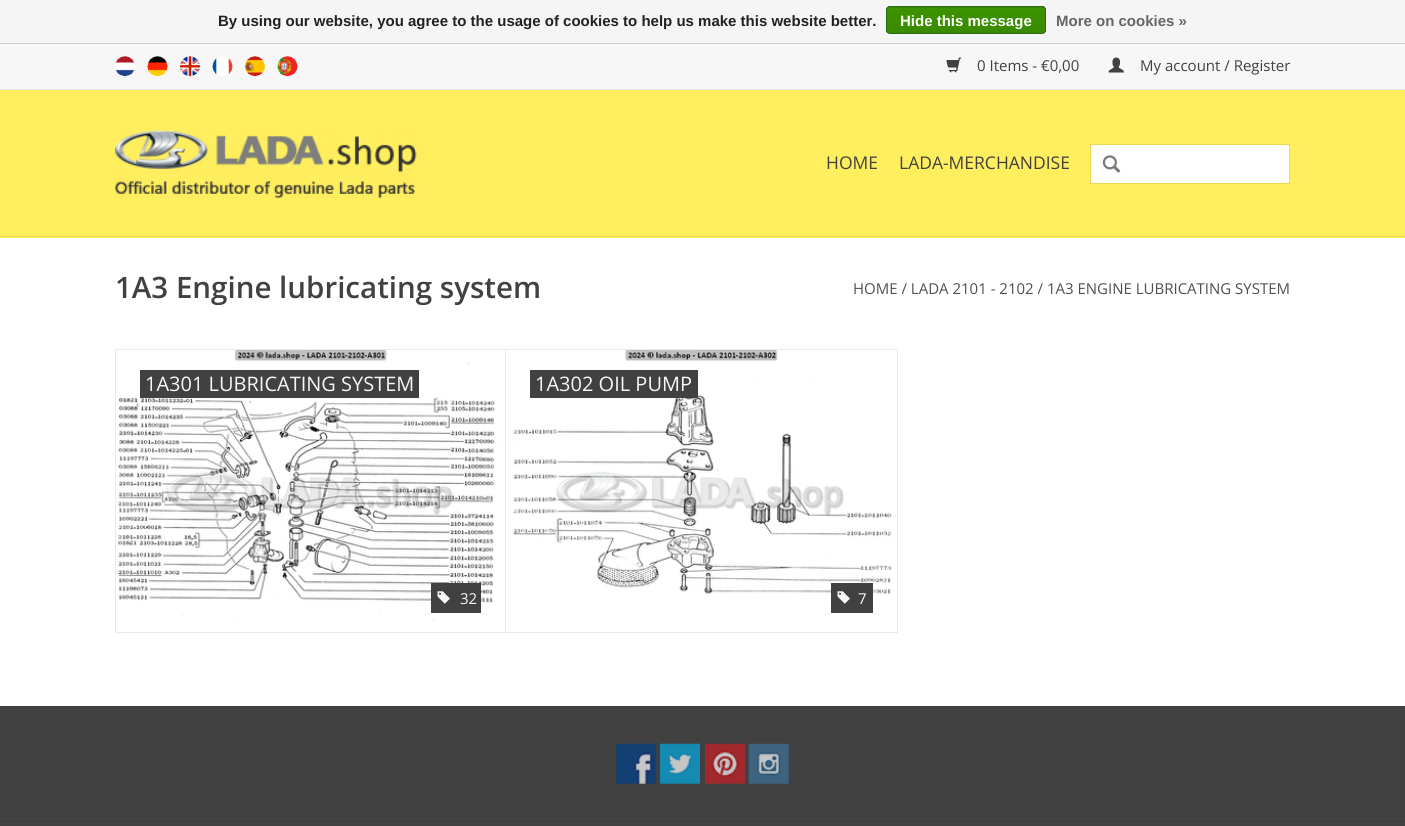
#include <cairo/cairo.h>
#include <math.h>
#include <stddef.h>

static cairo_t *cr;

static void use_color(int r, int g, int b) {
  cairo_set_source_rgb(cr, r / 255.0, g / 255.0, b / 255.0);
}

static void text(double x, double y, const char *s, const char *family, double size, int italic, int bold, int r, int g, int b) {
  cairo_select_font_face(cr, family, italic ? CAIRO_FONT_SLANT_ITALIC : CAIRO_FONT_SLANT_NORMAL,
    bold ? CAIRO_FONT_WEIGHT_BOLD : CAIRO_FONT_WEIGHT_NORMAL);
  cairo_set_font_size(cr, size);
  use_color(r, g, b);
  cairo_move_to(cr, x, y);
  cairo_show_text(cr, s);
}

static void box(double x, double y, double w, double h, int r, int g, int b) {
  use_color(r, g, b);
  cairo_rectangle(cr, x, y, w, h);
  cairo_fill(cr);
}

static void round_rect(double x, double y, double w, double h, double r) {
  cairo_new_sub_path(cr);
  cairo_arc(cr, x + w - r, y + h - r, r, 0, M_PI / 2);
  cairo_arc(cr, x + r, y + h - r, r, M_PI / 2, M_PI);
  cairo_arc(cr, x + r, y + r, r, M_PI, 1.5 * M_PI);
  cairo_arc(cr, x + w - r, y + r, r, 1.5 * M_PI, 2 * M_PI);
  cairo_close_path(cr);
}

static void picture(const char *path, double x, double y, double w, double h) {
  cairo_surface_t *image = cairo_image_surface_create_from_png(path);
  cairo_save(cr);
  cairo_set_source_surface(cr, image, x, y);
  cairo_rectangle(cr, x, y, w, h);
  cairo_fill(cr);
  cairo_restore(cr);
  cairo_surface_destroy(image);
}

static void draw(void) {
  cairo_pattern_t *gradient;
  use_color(255, 255, 255);
  cairo_paint(cr);
  box(0, 0, 1405, 43, 245, 245, 245);
  box(0, 43, 1405, 1, 204, 204, 204);
  cairo_save(cr);
  round_rect(886, 6, 160, 28, 4);
  cairo_clip(cr);
  gradient = cairo_pattern_create_linear(966, -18, 966, 7.5);
  cairo_pattern_add_color_stop_rgba(gradient, 0, 0.235, 0.576, 0, 1);
  cairo_pattern_add_color_stop_rgba(gradient, 1, 0.224, 0.541, 0, 1);
  cairo_set_source(cr, gradient);
  cairo_pattern_destroy(gradient);
  cairo_rectangle(cr, 886, 6, 160, 2);
  cairo_fill(cr);
  gradient = cairo_pattern_create_linear(966, 7.5, 966, 33);
  cairo_pattern_add_color_stop_rgba(gradient, 0, 0.235, 0.576, 0, 1);
  cairo_pattern_add_color_stop_rgba(gradient, 1, 0.224, 0.541, 0, 1);
  cairo_set_source(cr, gradient);
  cairo_pattern_destroy(gradient);
  cairo_rectangle(cr, 886, 8, 160, 25);
  cairo_fill(cr);
  cairo_restore(cr);
  round_rect(886.5, 6.5, 159, 27, 3.5);
  use_color(41, 105, 29);
  cairo_set_line_width(cr, 1);
  cairo_stroke(cr);
  box(0, 90, 1405, 148, 255, 238, 94);
  box(0, 236, 1405, 1, 234, 218, 86);
  box(0, 44, 1405, 45, 247, 247, 247);
  box(0, 89, 1405, 1, 229, 229, 229);
  picture("img_01.png", 115, 56, 20, 21);
  picture("img_02.png", 147, 56, 21, 21);
  picture("img_03.png", 180, 56, 20, 21);
  picture("img_04.png", 212, 56, 21, 20);
  picture("img_05.png", 245, 56, 20, 21);
  picture("img_06.png", 277, 56, 21, 21);
  picture("img_07.png", 946, 57, 16, 16);
  picture("img_08.png", 1108, 57, 16, 16);
  picture("img_09.png", 115, 130, 302, 68);
  use_color(255, 255, 255);
  cairo_rectangle(cr, 1090.5, 144.5, 199, 39);
  cairo_fill_preserve(cr);
  use_color(234, 218, 86);
  cairo_stroke(cr);
  picture("img_10.png", 1102, 155, 19, 18);
  cairo_rectangle(cr, 115.5, 349.5, 390, 283);
  use_color(234, 234, 234);
  cairo_stroke(cr);
  picture("img_11.png", 116, 350, 389, 281);
  use_color(65, 65, 65);
  cairo_new_path(cr);
  cairo_move_to(cr, 150, 398);
  cairo_line_to(cr, 419, 398);
  cairo_line_to(cr, 419, 370);
  cairo_line_to(cr, 414, 370);
  cairo_line_to(cr, 414, 398);
  cairo_close_path(cr);
  cairo_fill(cr);
  cairo_new_path(cr);
  cairo_move_to(cr, 140, 370);
  cairo_line_to(cr, 140, 398);
  cairo_line_to(cr, 409, 398);
  cairo_line_to(cr, 145, 398);
  cairo_line_to(cr, 145, 370);
  cairo_close_path(cr);
  cairo_fill(cr);
  box(145, 370, 269, 28, 65, 65, 65);
  box(431, 583, 50, 30, 65, 65, 65);
  picture("img_12.png", 437, 591, 13, 13);
  cairo_rectangle(cr, 505.5, 349.5, 392, 283);
  use_color(234, 234, 234);
  cairo_stroke(cr);
  picture("img_13.png", 506, 350, 390, 281);
  use_color(65, 65, 65);
  cairo_new_path(cr);
  cairo_move_to(cr, 540, 398);
  cairo_line_to(cr, 698, 398);
  cairo_line_to(cr, 698, 370);
  cairo_line_to(cr, 692, 370);
  cairo_line_to(cr, 692, 398);
  cairo_close_path(cr);
  cairo_fill(cr);
  cairo_new_path(cr);
  cairo_move_to(cr, 530, 370);
  cairo_line_to(cr, 530, 398);
  cairo_line_to(cr, 688, 398);
  cairo_line_to(cr, 535, 398);
  cairo_line_to(cr, 535, 370);
  cairo_close_path(cr);
  cairo_fill(cr);
  box(535, 370, 157, 28, 65, 65, 65);
  box(831, 583, 42, 30, 65, 65, 65);
  picture("img_12.png", 837, 591, 13, 13);
  box(0, 707, 1405, 119, 65, 65, 65);
  box(0, 706, 1405, 1, 59, 59, 59);
  picture("img_14.png", 616, 743, 41, 41);
  picture("img_15.png", 660, 743, 40, 41);
  picture("img_16.png", 705, 743, 40, 41);
  picture("img_17.png", 748, 743, 41, 41);
  box(0, 821, 1405, 1, 59, 59, 59);
  text(218, 26, "By using our website, you agree to the usage of cookies to help us make this website better.", "Liberation Sans", 15, 0, 1, 34, 34, 34);
  text(900, 26, "Hide this message", "Liberation Sans", 15, 0, 1, 255, 255, 255);
  text(1056, 26, "More on cookies »", "Liberation Sans", 15, 0, 1, 102, 102, 102);
  text(977, 71, "0 Items - €0,00", "Open Sans", 15, 0, 0, 65, 65, 65);
  text(1140, 71, "My account / Register", "Open Sans", 15, 0, 0, 65, 65, 65);
  text(826, 169, "HOME", "Open Sans", 17.5, 0, 0, 65, 65, 65);
  text(899, 169, "LADA-MERCHANDISE", "Open Sans", 17.5, 0, 0, 65, 65, 65);
  text(115, 298, "1A3 Engine lubricating system", "Open Sans SemiBold", 29.5, 0, 0, 65, 65, 65);
  text(853, 294, "HOME / LADA 2101 - 2102 / 1A3 ENGINE LUBRICATING SYSTEM", "Open Sans", 15, 0, 0, 80, 80, 80);
  text(145, 391, "1A301 LUBRICATING SYSTEM", "Open Sans", 20, 0, 0, 247, 247, 247);
  text(460, 604, "32", "Open Sans", 15, 0, 0, 247, 247, 247);
  text(535, 391, "1A302 OIL PUMP", "Open Sans", 20, 0, 0, 247, 247, 247);
  text(858, 604, "7", "Open Sans", 15, 0, 0, 247, 247, 247);
}

int main(void) {
  cairo_surface_t *surface = cairo_image_surface_create(CAIRO_FORMAT_RGB24, 1405, 826);
  cr = cairo_create(surface);
  cairo_font_options_t *options = cairo_font_options_create();
  cairo_font_options_set_hint_metrics(options, CAIRO_HINT_METRICS_OFF);
  cairo_font_options_set_hint_style(options, CAIRO_HINT_STYLE_NONE);
  cairo_set_font_options(cr, options);
  cairo_set_miter_limit(cr, 4);
  draw();
  cairo_surface_write_to_png(surface, "out.png");
  cairo_font_options_destroy(options);
  cairo_destroy(cr);
  cairo_surface_destroy(surface);
  return 0;
}
